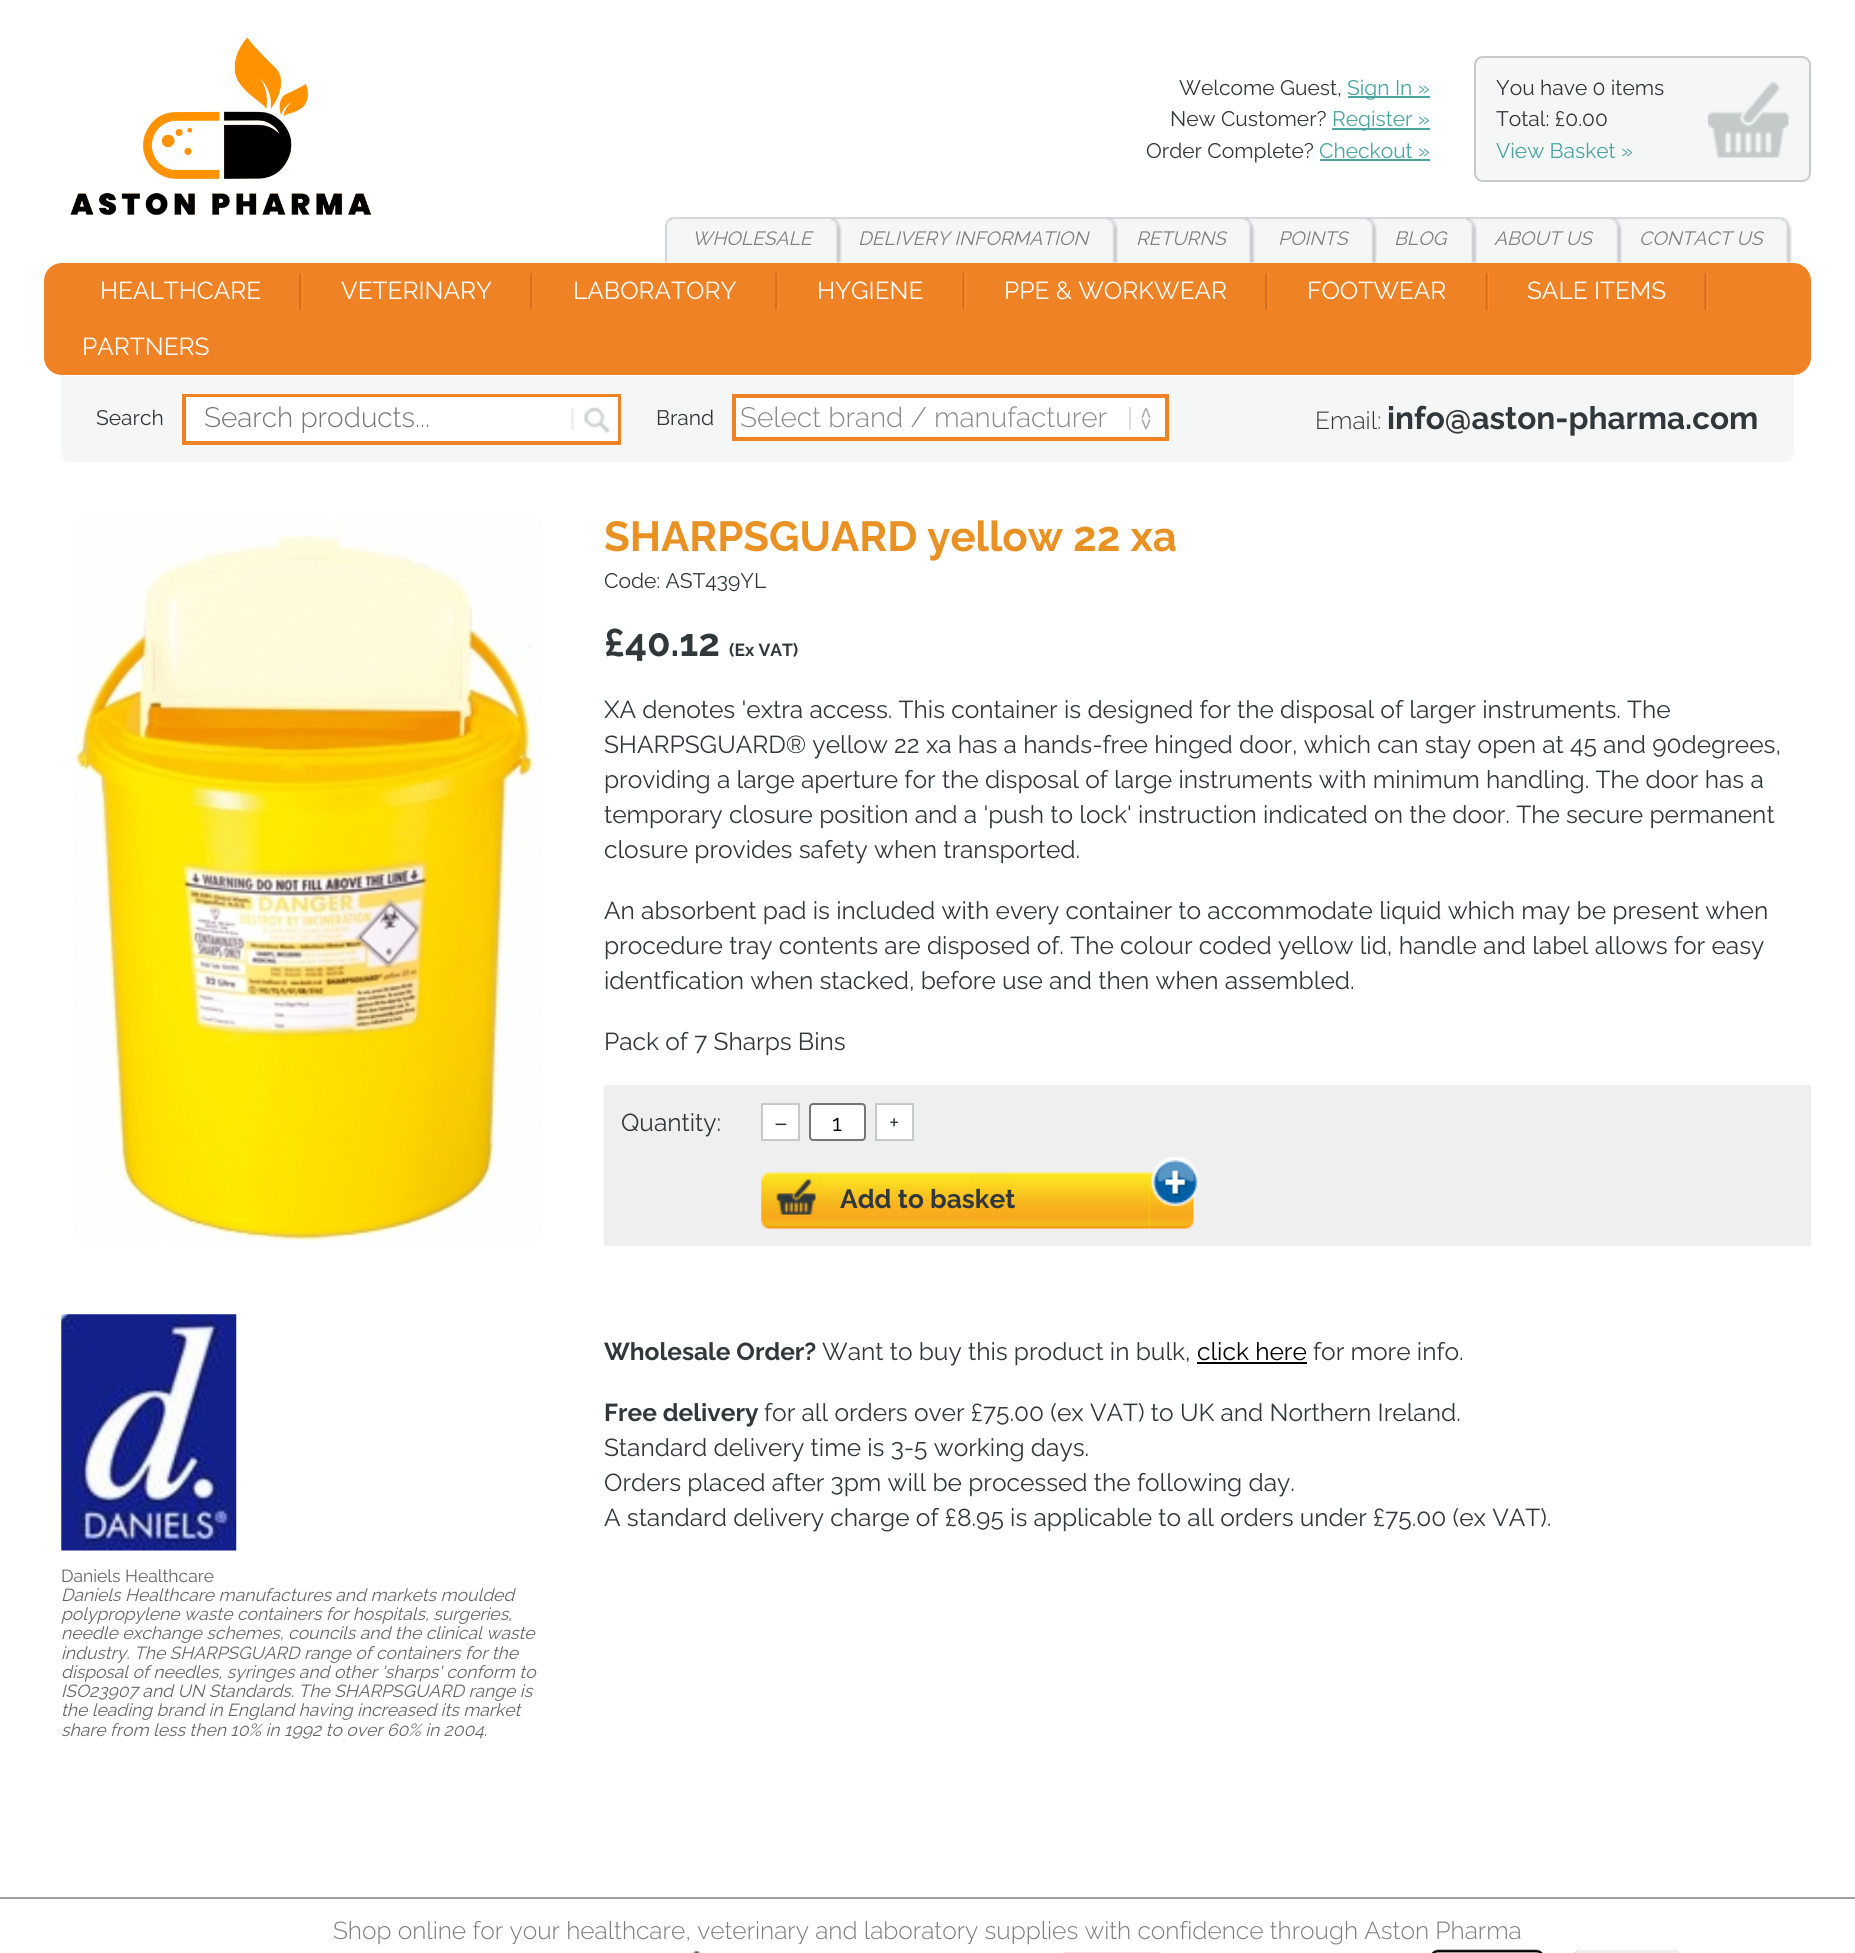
#include <cairo/cairo.h>
#include <math.h>
#include <stddef.h>

static cairo_t *cr;

static void use_color(int r, int g, int b) {
  cairo_set_source_rgb(cr, r / 255.0, g / 255.0, b / 255.0);
}

static void text(double x, double y, const char *s, const char *family, double size, int italic, int bold, int r, int g, int b) {
  cairo_select_font_face(cr, family, italic ? CAIRO_FONT_SLANT_ITALIC : CAIRO_FONT_SLANT_NORMAL,
    bold ? CAIRO_FONT_WEIGHT_BOLD : CAIRO_FONT_WEIGHT_NORMAL);
  cairo_set_font_size(cr, size);
  use_color(r, g, b);
  cairo_move_to(cr, x, y);
  cairo_show_text(cr, s);
}

static void box(double x, double y, double w, double h, int r, int g, int b) {
  use_color(r, g, b);
  cairo_rectangle(cr, x, y, w, h);
  cairo_fill(cr);
}

static void round_rect(double x, double y, double w, double h, double r) {
  cairo_new_sub_path(cr);
  cairo_arc(cr, x + w - r, y + h - r, r, 0, M_PI / 2);
  cairo_arc(cr, x + r, y + h - r, r, M_PI / 2, M_PI);
  cairo_arc(cr, x + r, y + r, r, M_PI, 1.5 * M_PI);
  cairo_arc(cr, x + w - r, y + r, r, 1.5 * M_PI, 2 * M_PI);
  cairo_close_path(cr);
}

static void picture(const char *path, double x, double y, double w, double h) {
  cairo_surface_t *image = cairo_image_surface_create_from_png(path);
  cairo_save(cr);
  cairo_set_source_surface(cr, image, x, y);
  cairo_rectangle(cr, x, y, w, h);
  cairo_fill(cr);
  cairo_restore(cr);
  cairo_surface_destroy(image);
}

static void draw(void) {
  use_color(255, 255, 255);
  cairo_paint(cr);
  picture("img_01.png", 70, 37, 302, 178);
  box(1348, 96, 82, 2, 74, 164, 160);
  box(1332, 128, 98, 2, 74, 164, 160);
  box(1320, 159, 110, 2, 74, 164, 160);
  use_color(245, 246, 246);
  round_rect(1474, 56, 337, 126, 9);
  cairo_fill(cr);
  picture("img_02.png", 1708, 82, 81, 76);
  round_rect(1475, 57, 335, 124, 8);
  use_color(201, 202, 202);
  cairo_stroke(cr);
  picture("img_03.png", 665, 217, 9, 46);
  box(674, 217, 168, 46, 245, 246, 246);
  picture("img_04.png", 674, 217, 168, 46);
  box(842, 262, 276, 1, 245, 246, 246);
  picture("img_05.png", 842, 217, 276, 46);
  box(1118, 217, 137, 46, 245, 246, 246);
  picture("img_06.png", 1118, 217, 137, 46);
  box(1255, 262, 122, 1, 245, 246, 246);
  picture("img_07.png", 1255, 217, 122, 46);
  box(1377, 217, 100, 46, 245, 246, 246);
  picture("img_08.png", 1377, 217, 100, 46);
  box(1477, 262, 145, 1, 245, 246, 246);
  picture("img_09.png", 1477, 217, 145, 46);
  box(1622, 217, 170, 46, 245, 246, 246);
  picture("img_10.png", 1622, 217, 170, 46);
  use_color(240, 130, 38);
  round_rect(44, 263, 1767, 112, 18);
  cairo_fill(cr);
  picture("img_11.png", 299, 272, 4, 38);
  picture("img_11.png", 530, 272, 4, 38);
  picture("img_11.png", 775, 272, 4, 38);
  picture("img_12.png", 962, 272, 4, 39);
  picture("img_11.png", 1265, 272, 4, 38);
  picture("img_13.png", 1485, 272, 4, 39);
  picture("img_12.png", 1704, 272, 4, 39);
  use_color(245, 246, 246);
  cairo_new_path(cr);
  cairo_move_to(cr, 61, 376);
  cairo_line_to(cr, 1794, 376);
  cairo_line_to(cr, 1794, 453);
  cairo_curve_to(cr, 1794, 458, 1790, 462, 1785, 462);
  cairo_line_to(cr, 70, 462);
  cairo_curve_to(cr, 65, 462, 61, 458, 61, 453);
  cairo_close_path(cr);
  cairo_fill(cr);
  cairo_rectangle(cr, 184, 396, 435, 47);
  use_color(240, 130, 38);
  cairo_set_line_width(cr, 4);
  cairo_stroke(cr);
  box(186, 397, 432, 44, 255, 255, 255);
  picture("img_14.png", 571, 407, 39, 26);
  cairo_rectangle(cr, 734, 396, 433, 43);
  cairo_fill_preserve(cr);
  use_color(240, 130, 38);
  cairo_stroke(cr);
  box(1129, 407, 2, 23, 221, 221, 221);
  box(604, 1085, 1207, 161, 239, 239, 239);
  use_color(255, 255, 255);
  cairo_rectangle(cr, 762, 1104, 37, 36);
  cairo_fill_preserve(cr);
  use_color(196, 202, 202);
  cairo_set_line_width(cr, 2);
  cairo_stroke(cr);
  use_color(255, 255, 255);
  round_rect(810, 1104, 55, 36, 3);
  cairo_fill_preserve(cr);
  use_color(118, 118, 118);
  cairo_stroke(cr);
  use_color(255, 255, 255);
  cairo_rectangle(cr, 876, 1104, 37, 36);
  cairo_fill_preserve(cr);
  use_color(196, 202, 202);
  cairo_stroke(cr);
  picture("img_15.png", 1149, 1157, 50, 72);
  picture("img_16.png", 761, 1172, 389, 57);
  box(1197, 1362, 110, 2, 0, 0, 0);
  picture("img_17.png", 74, 518, 468, 724);
  picture("img_18.png", 61, 1314, 176, 237);
  box(0, 1897, 1855, 2, 159, 159, 159);
  picture("img_20.png", 1062, 1952, 99, 1);
  picture("img_21.png", 1431, 1949, 248, 4);
  text(1179, 95, "Welcome Guest,", "Raleway", 21, 0, 0, 49, 56, 60);
  text(1347, 95, "Sign In »", "Raleway", 21, 0, 0, 74, 164, 160);
  text(1170, 126, "New Customer?", "Raleway", 21, 0, 0, 49, 56, 60);
  text(1332, 126, "Register »", "Raleway", 21, 0, 0, 74, 164, 160);
  text(1146, 158, "Order Complete?", "Raleway", 21, 0, 0, 49, 56, 60);
  text(1319, 158, "Checkout »", "Raleway", 21, 0, 0, 74, 164, 160);
  text(1496, 95, "You have 0 items", "Raleway", 21, 0, 0, 49, 56, 60);
  text(1496, 126, "Total: £0.00", "Raleway", 21, 0, 0, 49, 56, 60);
  text(1496, 158, "View Basket »", "Raleway", 21, 0, 0, 74, 164, 160);
  text(692, 245, "WHOLESALE", "Raleway", 19.25, 1, 0, 129, 128, 128);
  text(858, 245, "DELIVERY INFORMATION", "Raleway", 19.25, 1, 0, 129, 128, 128);
  text(1136, 245, "RETURNS", "Raleway", 19.25, 1, 0, 129, 128, 128);
  text(1278, 245, "POINTS", "Raleway", 19.25, 1, 0, 129, 128, 128);
  text(1394, 245, "BLOG", "Raleway", 19.25, 1, 0, 129, 128, 128);
  text(1494, 245, "ABOUT US", "Raleway", 19.25, 1, 0, 129, 128, 128);
  text(1639, 245, "CONTACT US", "Raleway", 19.25, 1, 0, 129, 128, 128);
  text(100, 299, "HEALTHCARE", "Raleway", 24.5, 0, 0, 255, 255, 255);
  text(341, 299, "VETERINARY", "Raleway", 24.5, 0, 0, 255, 255, 255);
  text(573, 299, "LABORATORY", "Raleway", 24.5, 0, 0, 255, 255, 255);
  text(817, 299, "HYGIENE", "Raleway", 24.5, 0, 0, 255, 255, 255);
  text(1004, 299, "PPE & WORKWEAR", "Raleway", 24.5, 0, 0, 255, 255, 255);
  text(1307, 299, "FOOTWEAR", "Raleway", 24.5, 0, 0, 255, 255, 255);
  text(1527, 299, "SALE ITEMS", "Raleway", 24.5, 0, 0, 255, 255, 255);
  text(82, 355, "PARTNERS", "Raleway", 24.5, 0, 0, 255, 255, 255);
  text(96, 425, "Search", "Raleway", 21, 0, 0, 49, 56, 60);
  text(204, 427, "Search products...", "Raleway Light", 28, 0, 0, 117, 117, 117);
  text(656, 425, "Brand", "Raleway", 21, 0, 0, 49, 56, 60);
  text(740, 427, "Select brand / manufacturer", "Raleway Light", 28, 0, 0, 136, 136, 136);
  cairo_save(cr);
  cairo_translate(cr, 1140, 407);
  cairo_rotate(cr, 90 * M_PI / 180);
  text(0, 0, "<>", "DejaVu Sans Mono", 19.25, 0, 0, 170, 170, 170);
  cairo_restore(cr);
  text(1315, 429, "Email:", "Raleway Light", 24.5, 0, 0, 49, 56, 60);
  text(1387, 429, "info@aston-pharma.com", "Raleway", 31.5, 0, 1, 49, 56, 60);
  text(604, 551, "SHARPSGUARD yellow 22 xa", "Raleway", 42, 0, 1, 234, 145, 35);
  text(604, 588, "Code: AST439YL", "Raleway", 21, 0, 0, 49, 56, 60);
  text(604, 656, "£40.12", "Raleway", 38.5, 0, 1, 49, 56, 60);
  text(729, 656, "(Ex VAT)", "Raleway", 17.5, 0, 1, 49, 56, 60);
  text(604, 718, "XA denotes 'extra access. This container is designed for the disposal of larger instruments. The", "Raleway", 24.5, 0, 0, 49, 56, 60);
  text(604, 753, "SHARPSGUARD® yellow 22 xa has a hands-free hinged door, which can stay open at 45 and 90degrees,", "Raleway", 24.5, 0, 0, 49, 56, 60);
  text(604, 788, "providing a large aperture for the disposal of large instruments with minimum handling. The door has a", "Raleway", 24.5, 0, 0, 49, 56, 60);
  text(604, 823, "temporary closure position and a 'push to lock' instruction indicated on the door. The secure permanent", "Raleway", 24.5, 0, 0, 49, 56, 60);
  text(604, 858, "closure provides safety when transported.", "Raleway", 24.5, 0, 0, 49, 56, 60);
  text(604, 919, "An absorbent pad is included with every container to accommodate liquid which may be present when", "Raleway", 24.5, 0, 0, 49, 56, 60);
  text(604, 954, "procedure tray contents are disposed of. The colour coded yellow lid, handle and label allows for easy", "Raleway", 24.5, 0, 0, 49, 56, 60);
  text(604, 989, "identfication when stacked, before use and then when assembled.", "Raleway", 24.5, 0, 0, 49, 56, 60);
  text(604, 1050, "Pack of 7 Sharps Bins", "Raleway", 24.5, 0, 0, 49, 56, 60);
  text(621, 1131, "Quantity:", "Raleway", 24.5, 0, 0, 49, 56, 60);
  text(774, 1131, "–", "Raleway", 24.5, 0, 0, 49, 56, 60);
  text(832, 1131, "1", "Raleway", 23, 0, 0, 0, 0, 0);
  text(889, 1131, "+", "Raleway", 24.5, 0, 0, 49, 56, 60);
  text(840, 1208, "Add to basket", "Raleway", 26.25, 0, 1, 49, 56, 60);
  text(604, 1360, "Wholesale Order?", "Raleway", 24.5, 0, 1, 49, 56, 60);
  text(822, 1360, "Want to buy this product in bulk,", "Raleway", 24.5, 0, 0, 49, 56, 60);
  text(1197, 1360, "click here", "Raleway", 24.5, 0, 0, 0, 0, 0);
  text(1313, 1360, "for more info.", "Raleway", 24.5, 0, 0, 49, 56, 60);
  text(604, 1421, "Free delivery", "Raleway", 24.5, 0, 1, 49, 56, 60);
  text(764, 1421, "for all orders over £75.00 (ex VAT) to UK and Northern Ireland.", "Raleway", 24.5, 0, 0, 49, 56, 60);
  text(604, 1456, "Standard delivery time is 3-5 working days.", "Raleway", 24.5, 0, 0, 49, 56, 60);
  text(604, 1491, "Orders placed after 3pm will be processed the following day.", "Raleway", 24.5, 0, 0, 49, 56, 60);
  text(604, 1526, "A standard delivery charge of £8.95 is applicable to all orders under £75.00 (ex VAT).", "Raleway", 24.5, 0, 0, 49, 56, 60);
  text(61, 1582, "Daniels Healthcare", "Raleway", 17.5, 0, 0, 102, 102, 102);
  text(61, 1601, "Daniels Healthcare manufactures and markets moulded", "Raleway", 17.5, 1, 0, 102, 102, 102);
  text(61, 1620, "polypropylene waste containers for hospitals, surgeries,", "Raleway", 17.5, 1, 0, 102, 102, 102);
  text(61, 1639, "needle exchange schemes, councils and the clinical waste", "Raleway", 17.5, 1, 0, 102, 102, 102);
  text(61, 1659, "industry. The SHARPSGUARD range of containers for the", "Raleway", 17.5, 1, 0, 102, 102, 102);
  text(61, 1678, "disposal of needles, syringes and other 'sharps' conform to", "Raleway", 17.5, 1, 0, 102, 102, 102);
  text(61, 1697, "ISO23907 and UN Standards. The SHARPSGUARD range is", "Raleway", 17.5, 1, 0, 102, 102, 102);
  text(61, 1716, "the leading brand in England having increased its market", "Raleway", 17.5, 1, 0, 102, 102, 102);
  text(61, 1736, "share from less then 10% in 1992 to over 60% in 2004.", "Raleway", 17.5, 1, 0, 102, 102, 102);
  text(333, 1939, "Shop online for your healthcare, veterinary and laboratory supplies with confidence through Aston Pharma", "Raleway Light", 24.5, 0, 0, 123, 123, 123);
  cairo_set_source_rgba(cr, 1, 1, 1, 0.75);
  cairo_rectangle(cr, 512, 1944, 3, 1);
  cairo_fill(cr);
  picture("img_19.png", 691, 1944, 323, 9);
}

int main(void) {
  cairo_surface_t *surface = cairo_image_surface_create(CAIRO_FORMAT_RGB24, 1855, 1953);
  cr = cairo_create(surface);
  cairo_font_options_t *options = cairo_font_options_create();
  cairo_font_options_set_hint_metrics(options, CAIRO_HINT_METRICS_OFF);
  cairo_font_options_set_hint_style(options, CAIRO_HINT_STYLE_NONE);
  cairo_set_font_options(cr, options);
  cairo_set_miter_limit(cr, 4);
  draw();
  cairo_surface_write_to_png(surface, "out.png");
  cairo_font_options_destroy(options);
  cairo_destroy(cr);
  cairo_surface_destroy(surface);
  return 0;
}
